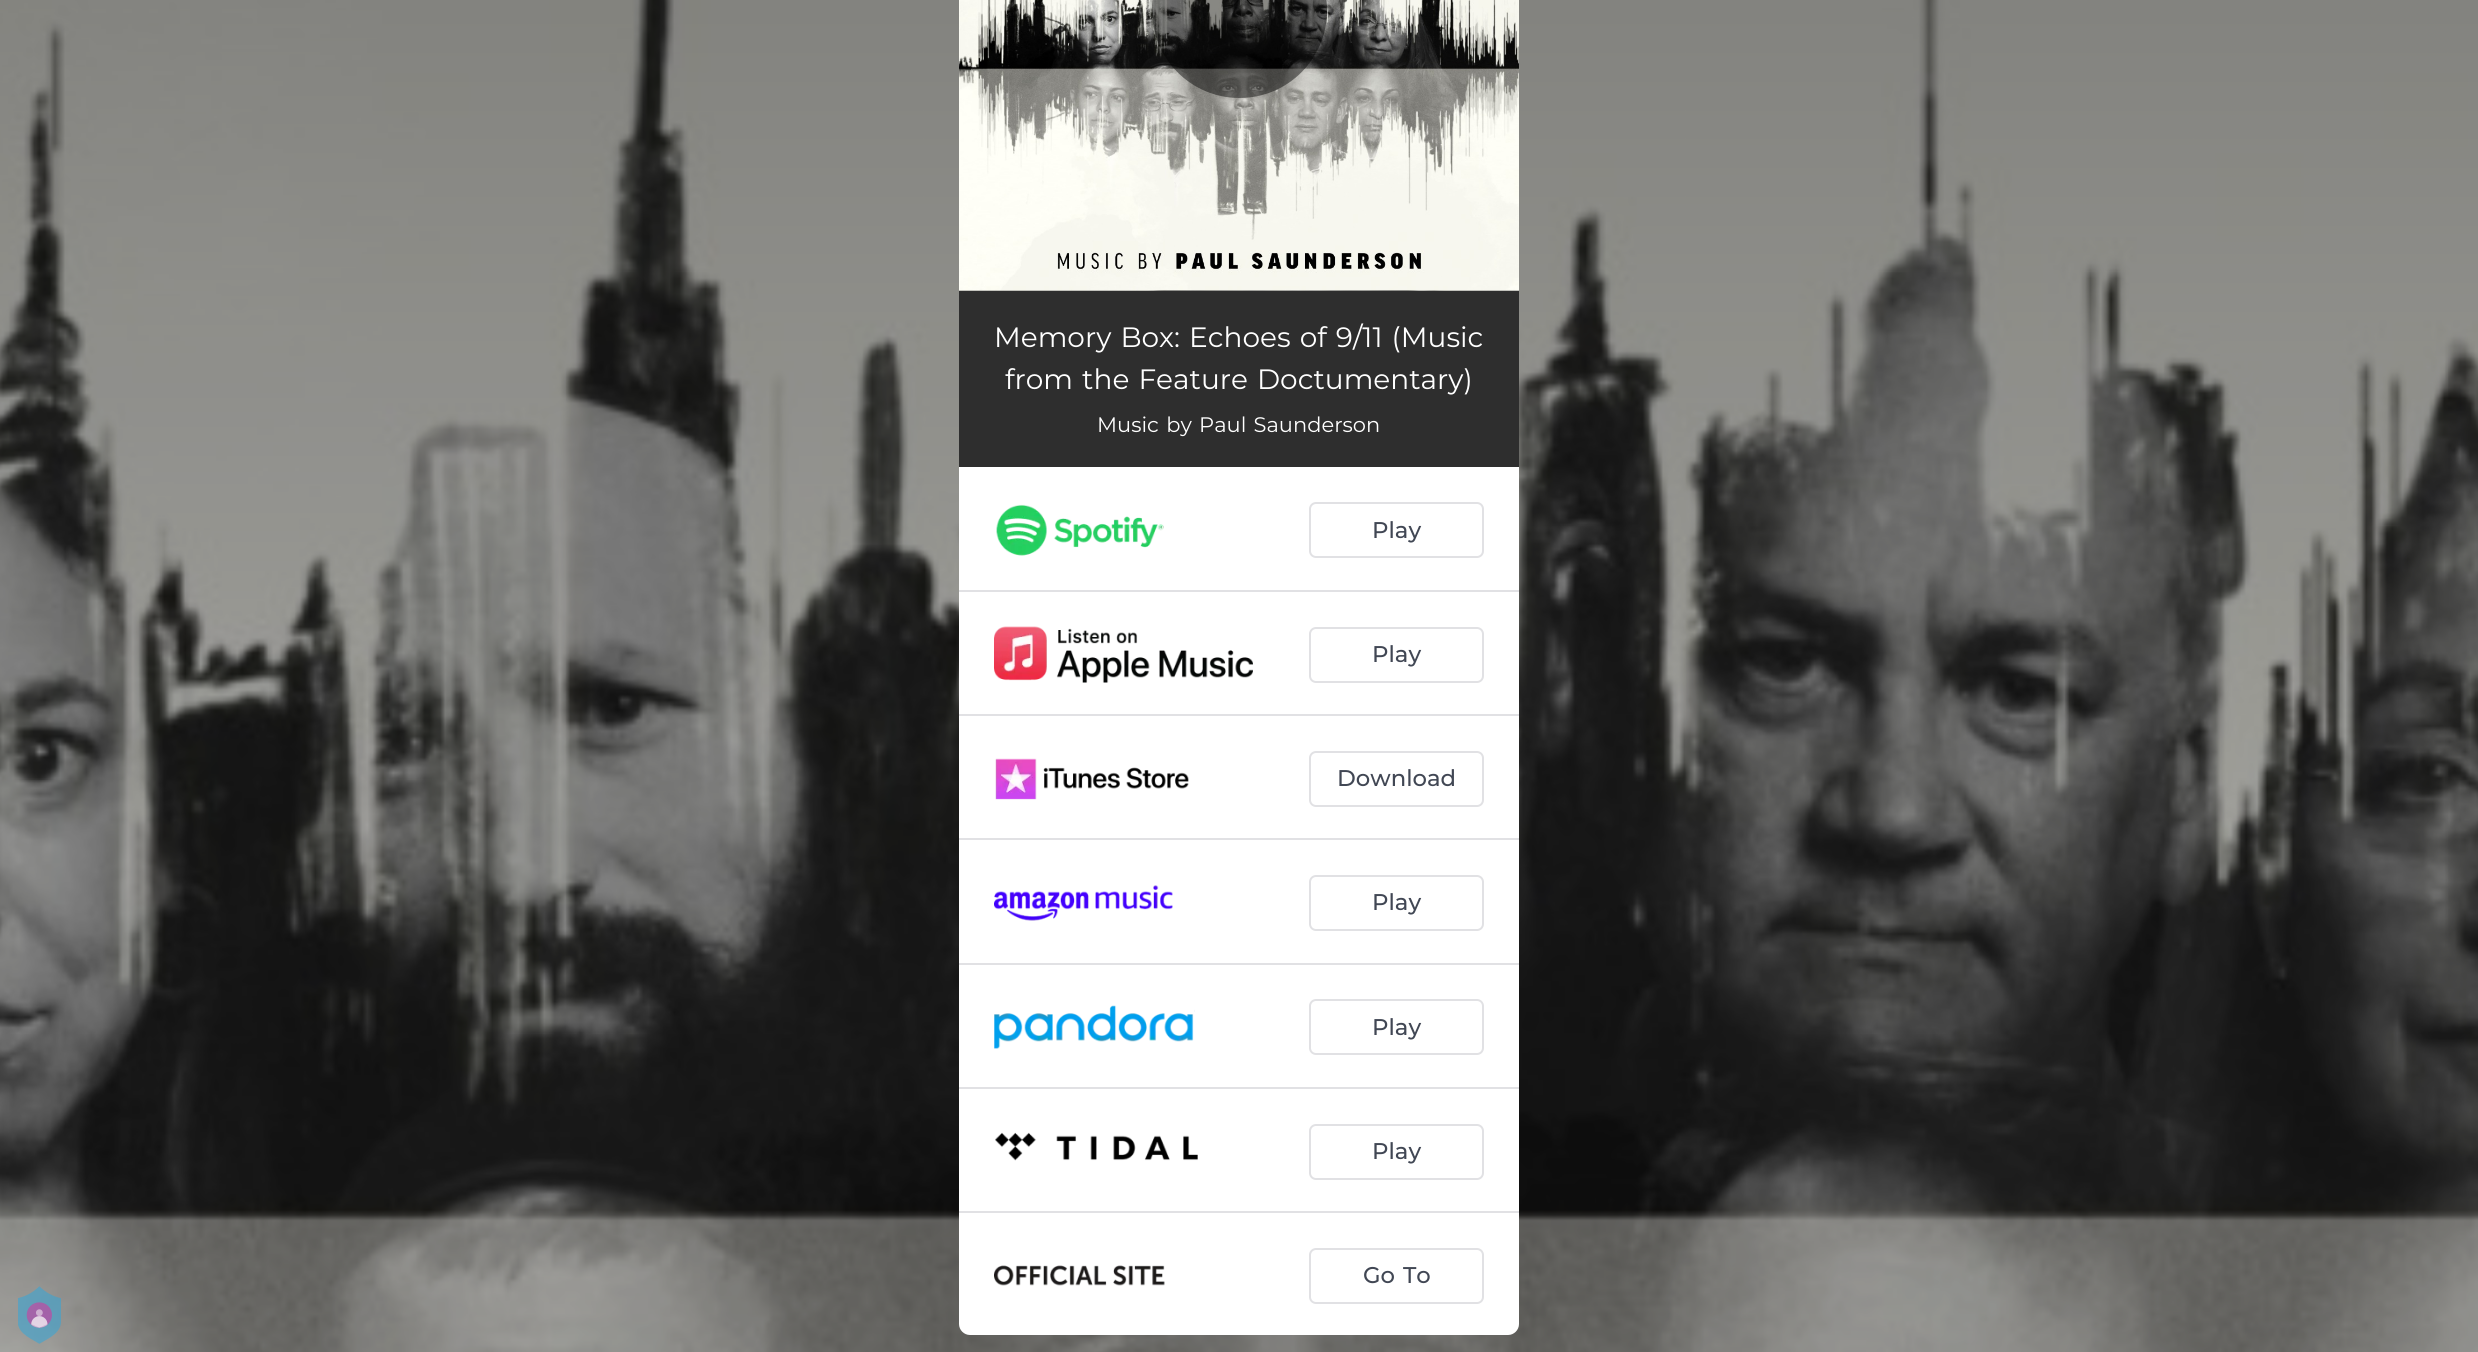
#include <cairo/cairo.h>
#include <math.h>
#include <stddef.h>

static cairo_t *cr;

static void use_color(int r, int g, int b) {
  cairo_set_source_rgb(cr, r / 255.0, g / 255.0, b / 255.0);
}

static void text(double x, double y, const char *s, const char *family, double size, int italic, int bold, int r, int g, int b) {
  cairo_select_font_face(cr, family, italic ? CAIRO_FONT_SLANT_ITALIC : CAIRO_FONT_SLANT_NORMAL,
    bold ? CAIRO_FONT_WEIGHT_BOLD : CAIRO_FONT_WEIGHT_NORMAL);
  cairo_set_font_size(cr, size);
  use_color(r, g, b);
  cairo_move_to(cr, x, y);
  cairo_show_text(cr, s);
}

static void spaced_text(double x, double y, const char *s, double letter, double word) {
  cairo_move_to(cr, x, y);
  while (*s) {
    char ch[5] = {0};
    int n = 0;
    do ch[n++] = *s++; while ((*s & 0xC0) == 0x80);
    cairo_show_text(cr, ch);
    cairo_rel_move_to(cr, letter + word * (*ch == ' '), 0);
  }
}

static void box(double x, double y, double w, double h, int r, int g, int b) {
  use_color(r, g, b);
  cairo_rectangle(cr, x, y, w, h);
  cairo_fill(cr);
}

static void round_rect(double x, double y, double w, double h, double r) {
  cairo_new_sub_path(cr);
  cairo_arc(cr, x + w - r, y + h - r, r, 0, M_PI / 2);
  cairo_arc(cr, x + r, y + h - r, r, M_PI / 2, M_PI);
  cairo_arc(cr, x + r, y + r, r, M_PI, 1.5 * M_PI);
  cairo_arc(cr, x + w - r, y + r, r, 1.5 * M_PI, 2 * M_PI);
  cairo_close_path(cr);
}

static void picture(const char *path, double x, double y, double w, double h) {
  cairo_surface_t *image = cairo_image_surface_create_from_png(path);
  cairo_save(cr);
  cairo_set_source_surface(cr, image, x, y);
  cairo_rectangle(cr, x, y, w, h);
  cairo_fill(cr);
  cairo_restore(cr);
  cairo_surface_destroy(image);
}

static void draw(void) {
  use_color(255, 255, 255);
  cairo_paint(cr);
  picture("img_01.png", 0, 0, 2478, 1352);
  picture("img_02.png", 959, 0, 560, 291);
  cairo_set_source_rgba(cr, 0, 0, 0, 0.45);
  cairo_arc(cr, 1239.5, 10.5, 87.5, 0, 2 * M_PI);
  cairo_fill(cr);
  box(959, 291, 560, 176, 46, 46, 46);
  use_color(255, 255, 255);
  cairo_new_path(cr);
  cairo_move_to(cr, 959, 467);
  cairo_line_to(cr, 1519, 467);
  cairo_line_to(cr, 1519, 1324);
  cairo_curve_to(cr, 1519, 1330, 1514, 1335, 1508, 1335);
  cairo_line_to(cr, 970, 1335);
  cairo_curve_to(cr, 964, 1335, 959, 1330, 959, 1324);
  cairo_close_path(cr);
  cairo_fill(cr);
  box(959, 590, 560, 2, 225, 225, 228);
  picture("img_03.png", 996, 504, 168, 52);
  round_rect(1310, 503, 173, 54, 6);
  cairo_stroke(cr);
  box(959, 714, 560, 2, 225, 225, 228);
  picture("img_04.png", 994, 626, 259, 57);
  round_rect(1310, 628, 173, 54, 6);
  cairo_stroke(cr);
  box(959, 838, 560, 2, 225, 225, 228);
  picture("img_05.png", 995, 758, 194, 42);
  round_rect(1310, 752, 173, 54, 6);
  cairo_stroke(cr);
  box(959, 963, 560, 2, 225, 225, 228);
  picture("img_06.png", 994, 885, 179, 36);
  round_rect(1310, 876, 173, 54, 6);
  cairo_stroke(cr);
  box(959, 1087, 560, 2, 225, 225, 228);
  picture("img_07.png", 994, 1005, 201, 44);
  round_rect(1310, 1000, 173, 54, 6);
  cairo_stroke(cr);
  box(959, 1211, 560, 2, 225, 225, 228);
  picture("img_08.png", 995, 1132, 203, 29);
  round_rect(1310, 1125, 173, 54, 6);
  cairo_stroke(cr);
  picture("img_09.png", 994, 1265, 171, 21);
  round_rect(1310, 1249, 173, 54, 6);
  cairo_stroke(cr);
  picture("img_10.png", 18, 1286, 43, 58);
  cairo_select_font_face(cr, "Montserrat", CAIRO_FONT_SLANT_NORMAL, CAIRO_FONT_WEIGHT_NORMAL);
  cairo_set_font_size(cr, 28);
  use_color(255, 255, 255);
  spaced_text(994, 347, "Memory Box: Echoes of 9/11 (Music", 0, 1.75);
  spaced_text(1005, 389, "from the Feature Doctumentary)", 0, 1.75);
  cairo_set_font_size(cr, 21);
  spaced_text(1097, 432, "Music by Paul Saunderson", 0, 1.75);
  text(1372, 538, "Play", "Montserrat Medium", 22.75, 0, 0, 65, 71, 84);
  text(1372, 662, "Play", "Montserrat Medium", 22.75, 0, 0, 65, 71, 84);
  text(1337, 786, "Download", "Montserrat Medium", 22.75, 0, 0, 65, 71, 84);
  text(1372, 910, "Play", "Montserrat Medium", 22.75, 0, 0, 65, 71, 84);
  text(1372, 1035, "Play", "Montserrat Medium", 22.75, 0, 0, 65, 71, 84);
  text(1372, 1159, "Play", "Montserrat Medium", 22.75, 0, 0, 65, 71, 84);
  spaced_text(1363, 1283, "Go To", 0, 1.75);
}

int main(void) {
  cairo_surface_t *surface = cairo_image_surface_create(CAIRO_FORMAT_RGB24, 2478, 1352);
  cr = cairo_create(surface);
  cairo_font_options_t *options = cairo_font_options_create();
  cairo_font_options_set_hint_metrics(options, CAIRO_HINT_METRICS_OFF);
  cairo_font_options_set_hint_style(options, CAIRO_HINT_STYLE_NONE);
  cairo_set_font_options(cr, options);
  cairo_set_miter_limit(cr, 4);
  draw();
  cairo_surface_write_to_png(surface, "out.png");
  cairo_font_options_destroy(options);
  cairo_destroy(cr);
  cairo_surface_destroy(surface);
  return 0;
}
